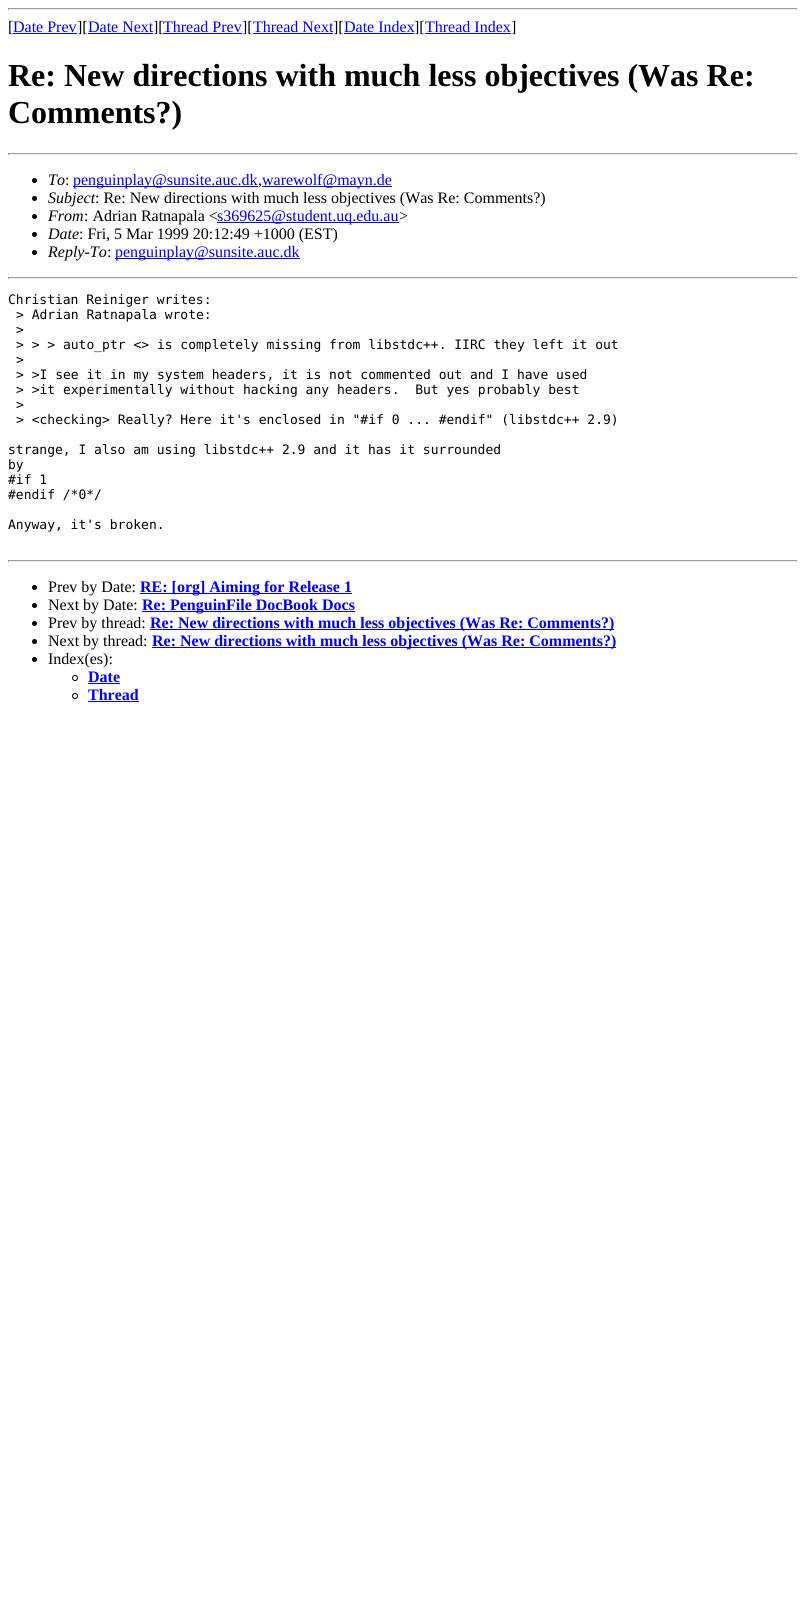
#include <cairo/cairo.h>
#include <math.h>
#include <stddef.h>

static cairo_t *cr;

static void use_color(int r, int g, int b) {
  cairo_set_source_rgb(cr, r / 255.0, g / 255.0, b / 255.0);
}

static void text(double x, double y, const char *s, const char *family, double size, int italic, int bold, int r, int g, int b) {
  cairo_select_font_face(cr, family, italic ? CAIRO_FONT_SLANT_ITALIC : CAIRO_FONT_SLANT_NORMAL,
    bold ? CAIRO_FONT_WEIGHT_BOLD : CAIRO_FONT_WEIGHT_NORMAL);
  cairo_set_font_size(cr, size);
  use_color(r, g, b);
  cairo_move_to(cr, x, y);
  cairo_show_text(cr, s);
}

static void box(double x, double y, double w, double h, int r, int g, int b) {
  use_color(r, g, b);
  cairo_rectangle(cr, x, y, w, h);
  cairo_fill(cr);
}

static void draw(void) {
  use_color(255, 255, 255);
  cairo_paint(cr);
  box(8, 8, 790, 1, 159, 159, 159);
  box(797, 8, 1, 2, 238, 238, 238);
  box(8, 9, 790, 1, 238, 238, 238);
  box(8, 8, 1, 2, 159, 159, 159);
  box(13, 33, 64, 1, 0, 0, 238);
  box(88, 33, 65, 1, 0, 0, 238);
  box(163, 33, 79, 1, 0, 0, 238);
  box(253, 33, 80, 1, 0, 0, 238);
  box(344, 33, 70, 1, 0, 0, 238);
  box(425, 33, 86, 1, 0, 0, 238);
  box(8, 153, 790, 1, 159, 159, 159);
  box(797, 153, 1, 2, 238, 238, 238);
  box(8, 154, 790, 1, 238, 238, 238);
  box(8, 153, 1, 2, 159, 159, 159);
  use_color(0, 0, 0);
  cairo_arc(cr, 34.5, 180.5, 2.5, 0, 2 * M_PI);
  cairo_fill(cr);
  box(73, 186, 185, 1, 0, 0, 238);
  box(262, 186, 130, 1, 0, 0, 238);
  use_color(0, 0, 0);
  cairo_arc(cr, 34.5, 198.5, 2.5, 0, 2 * M_PI);
  cairo_fill(cr);
  cairo_arc(cr, 34.5, 216.5, 2.5, 0, 2 * M_PI);
  cairo_fill(cr);
  box(217, 222, 182, 1, 0, 0, 238);
  use_color(0, 0, 0);
  cairo_arc(cr, 34.5, 234.5, 2.5, 0, 2 * M_PI);
  cairo_fill(cr);
  cairo_arc(cr, 34.5, 252.5, 2.5, 0, 2 * M_PI);
  cairo_fill(cr);
  box(115, 258, 185, 1, 0, 0, 238);
  box(8, 277, 790, 1, 159, 159, 159);
  box(797, 277, 1, 2, 238, 238, 238);
  box(8, 278, 790, 1, 238, 238, 238);
  box(8, 277, 1, 2, 159, 159, 159);
  box(8, 560, 790, 1, 159, 159, 159);
  box(797, 560, 1, 2, 238, 238, 238);
  box(8, 561, 790, 1, 238, 238, 238);
  box(8, 560, 1, 2, 159, 159, 159);
  use_color(0, 0, 0);
  cairo_arc(cr, 34.5, 587.5, 2.5, 0, 2 * M_PI);
  cairo_fill(cr);
  box(140, 593, 212, 1, 0, 0, 238);
  use_color(0, 0, 0);
  cairo_arc(cr, 34.5, 605.5, 2.5, 0, 2 * M_PI);
  cairo_fill(cr);
  box(142, 611, 213, 1, 0, 0, 238);
  use_color(0, 0, 0);
  cairo_arc(cr, 34.5, 623.5, 2.5, 0, 2 * M_PI);
  cairo_fill(cr);
  box(150, 629, 464, 1, 0, 0, 238);
  use_color(0, 0, 0);
  cairo_arc(cr, 34.5, 641.5, 2.5, 0, 2 * M_PI);
  cairo_fill(cr);
  box(152, 647, 464, 1, 0, 0, 238);
  use_color(0, 0, 0);
  cairo_arc(cr, 34.5, 659.5, 2.5, 0, 2 * M_PI);
  cairo_fill(cr);
  cairo_arc(cr, 75, 678, 2.5, 0, 2 * M_PI);
  cairo_set_line_width(cr, 1);
  cairo_stroke(cr);
  box(88, 683, 32, 1, 0, 0, 238);
  cairo_arc(cr, 75, 696, 2.5, 0, 2 * M_PI);
  use_color(0, 0, 0);
  cairo_stroke(cr);
  box(88, 701, 51, 1, 0, 0, 238);
  text(8, 32, "[", "Liberation Serif", 16, 0, 0, 0, 0, 0);
  text(13, 32, "Date Prev", "Liberation Serif", 16, 0, 0, 0, 0, 238);
  text(77, 32, "][", "Liberation Serif", 16, 0, 0, 0, 0, 0);
  text(88, 32, "Date Next", "Liberation Serif", 16, 0, 0, 0, 0, 238);
  text(153, 32, "][", "Liberation Serif", 16, 0, 0, 0, 0, 0);
  text(163, 32, "Thread Prev", "Liberation Serif", 16, 0, 0, 0, 0, 238);
  text(242, 32, "][", "Liberation Serif", 16, 0, 0, 0, 0, 0);
  text(253, 32, "Thread Next", "Liberation Serif", 16, 0, 0, 0, 0, 238);
  text(333, 32, "][", "Liberation Serif", 16, 0, 0, 0, 0, 0);
  text(344, 32, "Date Index", "Liberation Serif", 16, 0, 0, 0, 0, 238);
  text(414, 32, "][", "Liberation Serif", 16, 0, 0, 0, 0, 0);
  text(425, 32, "Thread Index", "Liberation Serif", 16, 0, 0, 0, 0, 238);
  text(511, 32, "]", "Liberation Serif", 16, 0, 0, 0, 0, 0);
  text(8, 86, "Re: New directions with much less objectives (Was Re:", "Liberation Serif", 32, 0, 1, 0, 0, 0);
  text(8, 123, "Comments?)", "Liberation Serif", 32, 0, 1, 0, 0, 0);
  text(48, 185, "To", "Liberation Serif", 16, 1, 0, 0, 0, 0);
  text(65, 185, ":", "Liberation Serif", 16, 0, 0, 0, 0, 0);
  text(73, 185, "penguinplay@sunsite.auc.dk", "Liberation Serif", 16, 0, 0, 0, 0, 238);
  text(262, 185, "warewolf@mayn.de", "Liberation Serif", 16, 0, 0, 0, 0, 238);
  text(258, 185, ",", "Liberation Serif", 16, 0, 0, 0, 0, 0);
  text(48, 203, "Subject", "Liberation Serif", 16, 1, 0, 0, 0, 0);
  text(95, 203, ": Re: New directions with much less objectives (Was Re: Comments?)", "Liberation Serif", 16, 0, 0, 0, 0, 0);
  text(48, 221, "From", "Liberation Serif", 16, 1, 0, 0, 0, 0);
  text(84, 221, ": Adrian Ratnapala <", "Liberation Serif", 16, 0, 0, 0, 0, 0);
  text(217, 221, "s369625@student.uq.edu.au", "Liberation Serif", 16, 0, 0, 0, 0, 238);
  text(399, 221, ">", "Liberation Serif", 16, 0, 0, 0, 0, 0);
  text(48, 239, "Date", "Liberation Serif", 16, 1, 0, 0, 0, 0);
  text(79, 239, ": Fri, 5 Mar 1999 20:12:49 +1000 (EST)", "Liberation Serif", 16, 0, 0, 0, 0, 0);
  text(48, 257, "Reply-To", "Liberation Serif", 16, 1, 0, 0, 0, 0);
  text(107, 257, ":", "Liberation Serif", 16, 0, 0, 0, 0, 0);
  text(115, 257, "penguinplay@sunsite.auc.dk", "Liberation Serif", 16, 0, 0, 0, 0, 238);
  text(8, 304, "Christian Reiniger writes:", "DejaVu Sans Mono", 13, 0, 0, 0, 0, 0);
  text(16, 319, "> Adrian Ratnapala wrote:", "DejaVu Sans Mono", 13, 0, 0, 0, 0, 0);
  text(16, 334, ">", "DejaVu Sans Mono", 13, 0, 0, 0, 0, 0);
  text(16, 349, "> > > auto_ptr <> is completely missing from libstdc++. IIRC they left it out", "DejaVu Sans Mono", 13, 0, 0, 0, 0, 0);
  text(16, 364, ">", "DejaVu Sans Mono", 13, 0, 0, 0, 0, 0);
  text(16, 379, "> >I see it in my system headers, it is not commented out and I have used", "DejaVu Sans Mono", 13, 0, 0, 0, 0, 0);
  text(16, 394, "> >it experimentally without hacking any headers.  But yes probably best", "DejaVu Sans Mono", 13, 0, 0, 0, 0, 0);
  text(16, 409, ">", "DejaVu Sans Mono", 13, 0, 0, 0, 0, 0);
  text(16, 424, "> <checking> Really? Here it's enclosed in \"#if 0 ... #endif\" (libstdc++ 2.9)", "DejaVu Sans Mono", 13, 0, 0, 0, 0, 0);
  text(8, 454, "strange, I also am using libstdc++ 2.9 and it has it surrounded", "DejaVu Sans Mono", 13, 0, 0, 0, 0, 0);
  text(8, 469, "by", "DejaVu Sans Mono", 13, 0, 0, 0, 0, 0);
  text(8, 484, "#if 1", "DejaVu Sans Mono", 13, 0, 0, 0, 0, 0);
  text(8, 499, "#endif /*0*/", "DejaVu Sans Mono", 13, 0, 0, 0, 0, 0);
  text(8, 529, "Anyway, it's broken.", "DejaVu Sans Mono", 13, 0, 0, 0, 0, 0);
  text(48, 592, "Prev by Date:", "Liberation Serif", 16, 0, 0, 0, 0, 0);
  text(140, 592, "RE: [org] Aiming for Release 1", "Liberation Serif", 16, 0, 1, 0, 0, 238);
  text(48, 610, "Next by Date:", "Liberation Serif", 16, 0, 0, 0, 0, 0);
  text(142, 610, "Re: PenguinFile DocBook Docs", "Liberation Serif", 16, 0, 1, 0, 0, 238);
  text(48, 628, "Prev by thread:", "Liberation Serif", 16, 0, 0, 0, 0, 0);
  text(150, 628, "Re: New directions with much less objectives (Was Re: Comments?)", "Liberation Serif", 16, 0, 1, 0, 0, 238);
  text(48, 646, "Next by thread:", "Liberation Serif", 16, 0, 0, 0, 0, 0);
  text(152, 646, "Re: New directions with much less objectives (Was Re: Comments?)", "Liberation Serif", 16, 0, 1, 0, 0, 238);
  text(48, 664, "Index(es):", "Liberation Serif", 16, 0, 0, 0, 0, 0);
  text(88, 682, "Date", "Liberation Serif", 16, 0, 1, 0, 0, 238);
  text(88, 700, "Thread", "Liberation Serif", 16, 0, 1, 0, 0, 238);
}

int main(void) {
  cairo_surface_t *surface = cairo_image_surface_create(CAIRO_FORMAT_RGB24, 806, 1610);
  cr = cairo_create(surface);
  cairo_font_options_t *options = cairo_font_options_create();
  cairo_font_options_set_hint_metrics(options, CAIRO_HINT_METRICS_OFF);
  cairo_font_options_set_hint_style(options, CAIRO_HINT_STYLE_NONE);
  cairo_set_font_options(cr, options);
  cairo_set_miter_limit(cr, 4);
  draw();
  cairo_surface_write_to_png(surface, "out.png");
  cairo_font_options_destroy(options);
  cairo_destroy(cr);
  cairo_surface_destroy(surface);
  return 0;
}
